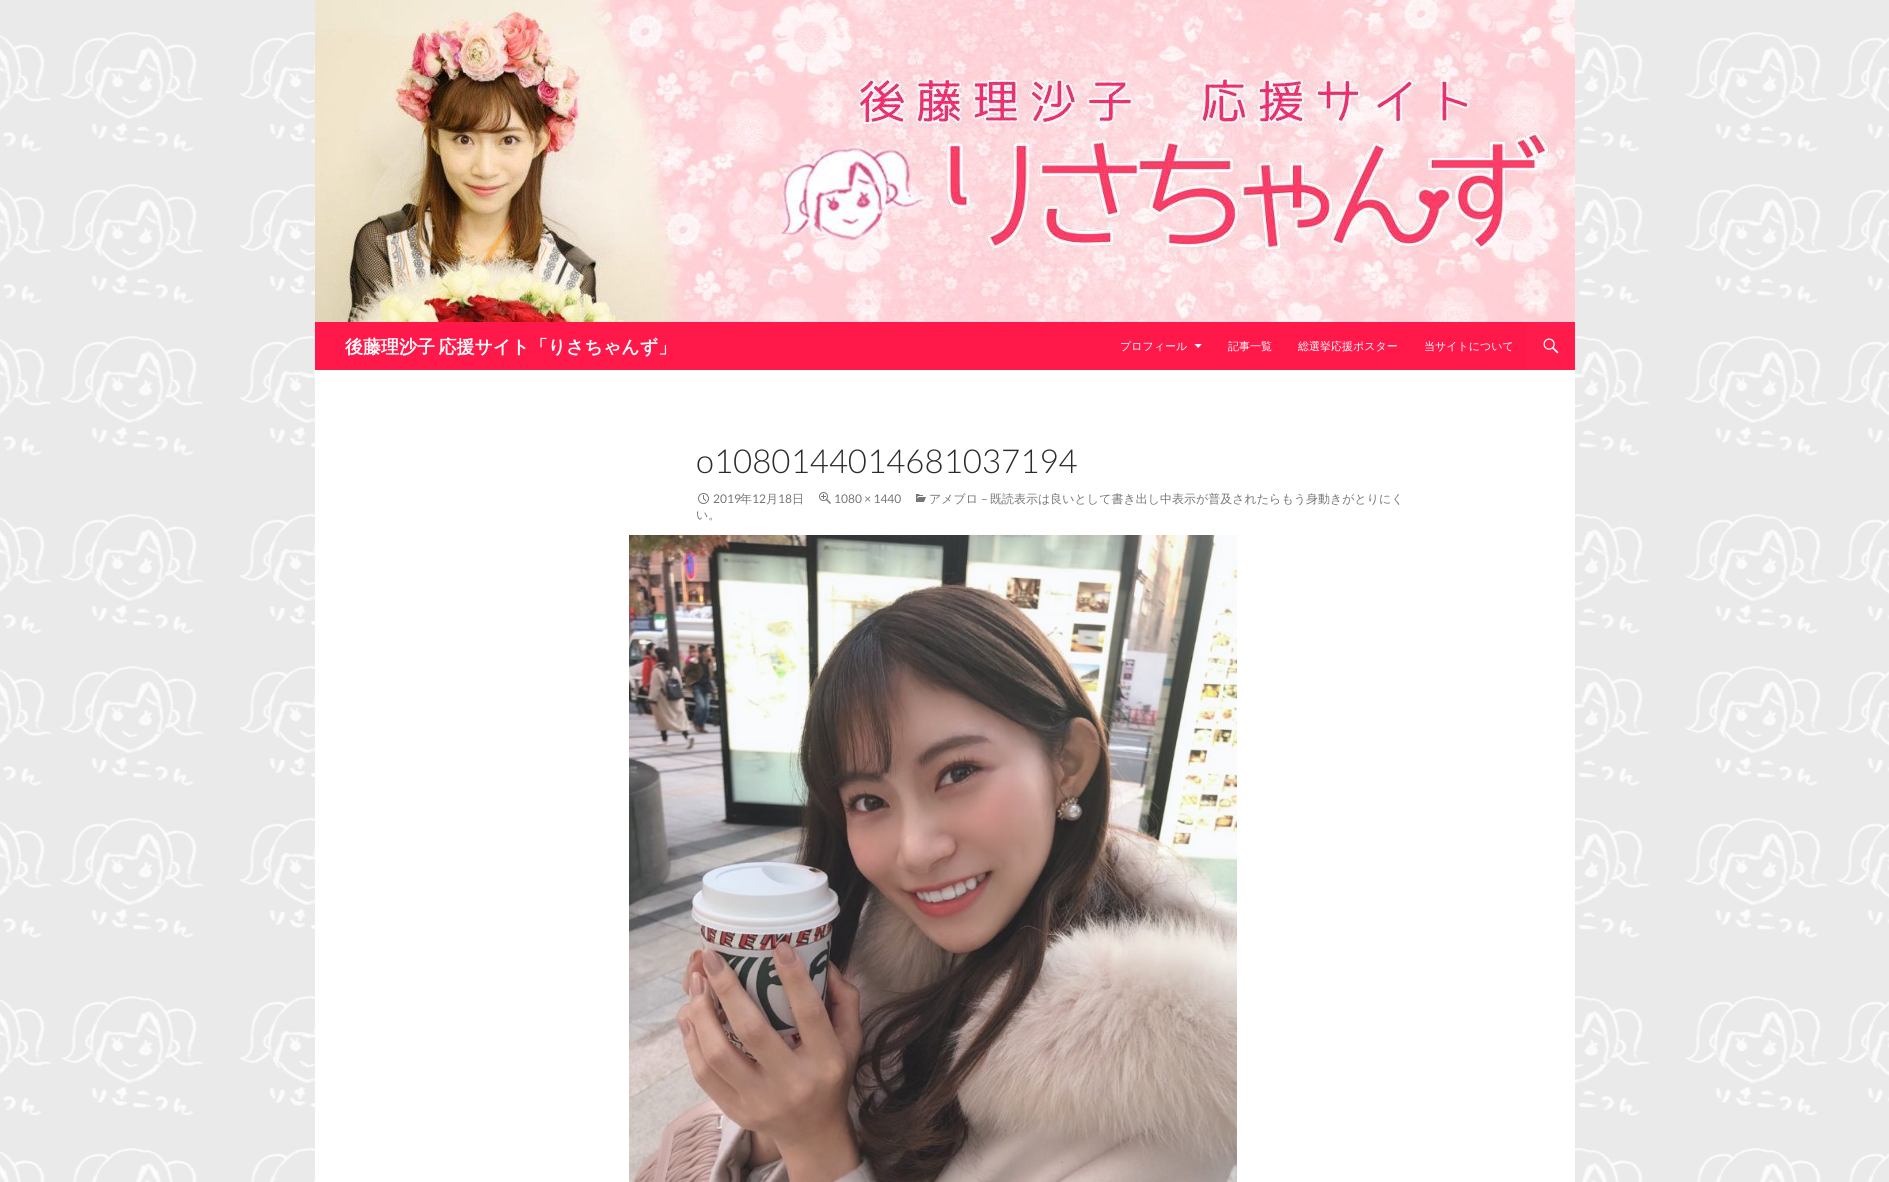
#include <cairo/cairo.h>
#include <math.h>
#include <stddef.h>

static cairo_t *cr;

static void use_color(int r, int g, int b) {
  cairo_set_source_rgb(cr, r / 255.0, g / 255.0, b / 255.0);
}

static void text(double x, double y, const char *s, const char *family, double size, int italic, int bold, int r, int g, int b) {
  cairo_select_font_face(cr, family, italic ? CAIRO_FONT_SLANT_ITALIC : CAIRO_FONT_SLANT_NORMAL,
    bold ? CAIRO_FONT_WEIGHT_BOLD : CAIRO_FONT_WEIGHT_NORMAL);
  cairo_set_font_size(cr, size);
  use_color(r, g, b);
  cairo_move_to(cr, x, y);
  cairo_show_text(cr, s);
}

static void spaced_text(double x, double y, const char *s, double letter, double word) {
  cairo_move_to(cr, x, y);
  while (*s) {
    char ch[5] = {0};
    int n = 0;
    do ch[n++] = *s++; while ((*s & 0xC0) == 0x80);
    cairo_show_text(cr, ch);
    cairo_rel_move_to(cr, letter + word * (*ch == ' '), 0);
  }
}

static void box(double x, double y, double w, double h, int r, int g, int b) {
  use_color(r, g, b);
  cairo_rectangle(cr, x, y, w, h);
  cairo_fill(cr);
}

static void picture(const char *path, double x, double y, double w, double h) {
  cairo_surface_t *image = cairo_image_surface_create_from_png(path);
  cairo_save(cr);
  cairo_set_source_surface(cr, image, x, y);
  cairo_rectangle(cr, x, y, w, h);
  cairo_fill(cr);
  cairo_restore(cr);
  cairo_surface_destroy(image);
}

static void draw(void) {
  use_color(255, 255, 255);
  cairo_paint(cr);
  picture("img_01.png", 0, 0, 1889, 1182);
  box(315, 370, 1260, 812, 255, 255, 255);
  picture("img_02.png", 315, 0, 1260, 322);
  box(315, 322, 1212, 48, 255, 25, 75);
  use_color(255, 255, 255);
  cairo_new_path(cr);
  cairo_move_to(cr, 1194.5, 344);
  cairo_line_to(cr, 1198, 348);
  cairo_line_to(cr, 1202, 344);
  cairo_close_path(cr);
  cairo_fill(cr);
  box(1527, 322, 48, 48, 255, 28, 77);
  picture("img_03.png", 1543, 338, 16, 16);
  picture("img_04.png", 916, 494, 10, 8);
  picture("img_05.png", 698, 493, 11, 11);
  picture("img_06.png", 819, 492, 12, 12);
  picture("img_07.png", 629, 535, 608, 647);
  cairo_select_font_face(cr, "WenQuanYi Zen Hei", CAIRO_FONT_SLANT_NORMAL, CAIRO_FONT_WEIGHT_BOLD);
  cairo_set_font_size(cr, 18);
  use_color(255, 255, 255);
  spaced_text(345, 353, "後藤理沙子 応援サイト「りさちゃんず」", 0, -2);
  text(1120, 350, "プロフィール", "WenQuanYi Zen Hei Medium", 11, 0, 0, 255, 255, 255);
  text(1228, 350, "記事一覧", "WenQuanYi Zen Hei Medium", 11, 0, 0, 255, 255, 255);
  text(1298, 350, "総選挙応援ポスター", "WenQuanYi Zen Hei Medium", 11, 0, 0, 255, 255, 255);
  text(1424, 350, "当サイトについて", "WenQuanYi Zen Hei Medium", 11, 0, 0, 255, 255, 255);
  text(696, 473, "o1080144014681037194", "Lato Light", 33, 0, 0, 43, 43, 43);
  text(929, 503, "アメブロ", "WenQuanYi Zen Hei Medium", 12, 0, 0, 118, 118, 118);
  text(981, 503, "–", "Lato", 12, 0, 0, 118, 118, 118);
  text(990, 503, "既読表示は良いとして書き出し中表示が普及されたらもう身動きがとりにく", "WenQuanYi Zen Hei Medium", 12, 0, 0, 118, 118, 118);
  text(696, 519, "い。", "WenQuanYi Zen Hei Medium", 12, 0, 0, 118, 118, 118);
  text(713, 503, "2019", "Lato", 12, 0, 0, 118, 118, 118);
  text(740, 503, "年", "WenQuanYi Zen Hei Medium", 12, 0, 0, 118, 118, 118);
  text(752, 503, "12", "Lato", 12, 0, 0, 118, 118, 118);
  text(766, 503, "月", "WenQuanYi Zen Hei Medium", 12, 0, 0, 118, 118, 118);
  text(778, 503, "18", "Lato", 12, 0, 0, 118, 118, 118);
  text(792, 503, "日", "WenQuanYi Zen Hei Medium", 12, 0, 0, 118, 118, 118);
  text(834, 503, "1080 × 1440", "Lato", 12, 0, 0, 118, 118, 118);
}

int main(void) {
  cairo_surface_t *surface = cairo_image_surface_create(CAIRO_FORMAT_RGB24, 1889, 1182);
  cr = cairo_create(surface);
  cairo_font_options_t *options = cairo_font_options_create();
  cairo_font_options_set_hint_metrics(options, CAIRO_HINT_METRICS_OFF);
  cairo_font_options_set_hint_style(options, CAIRO_HINT_STYLE_NONE);
  cairo_set_font_options(cr, options);
  cairo_set_miter_limit(cr, 4);
  draw();
  cairo_surface_write_to_png(surface, "out.png");
  cairo_font_options_destroy(options);
  cairo_destroy(cr);
  cairo_surface_destroy(surface);
  return 0;
}
